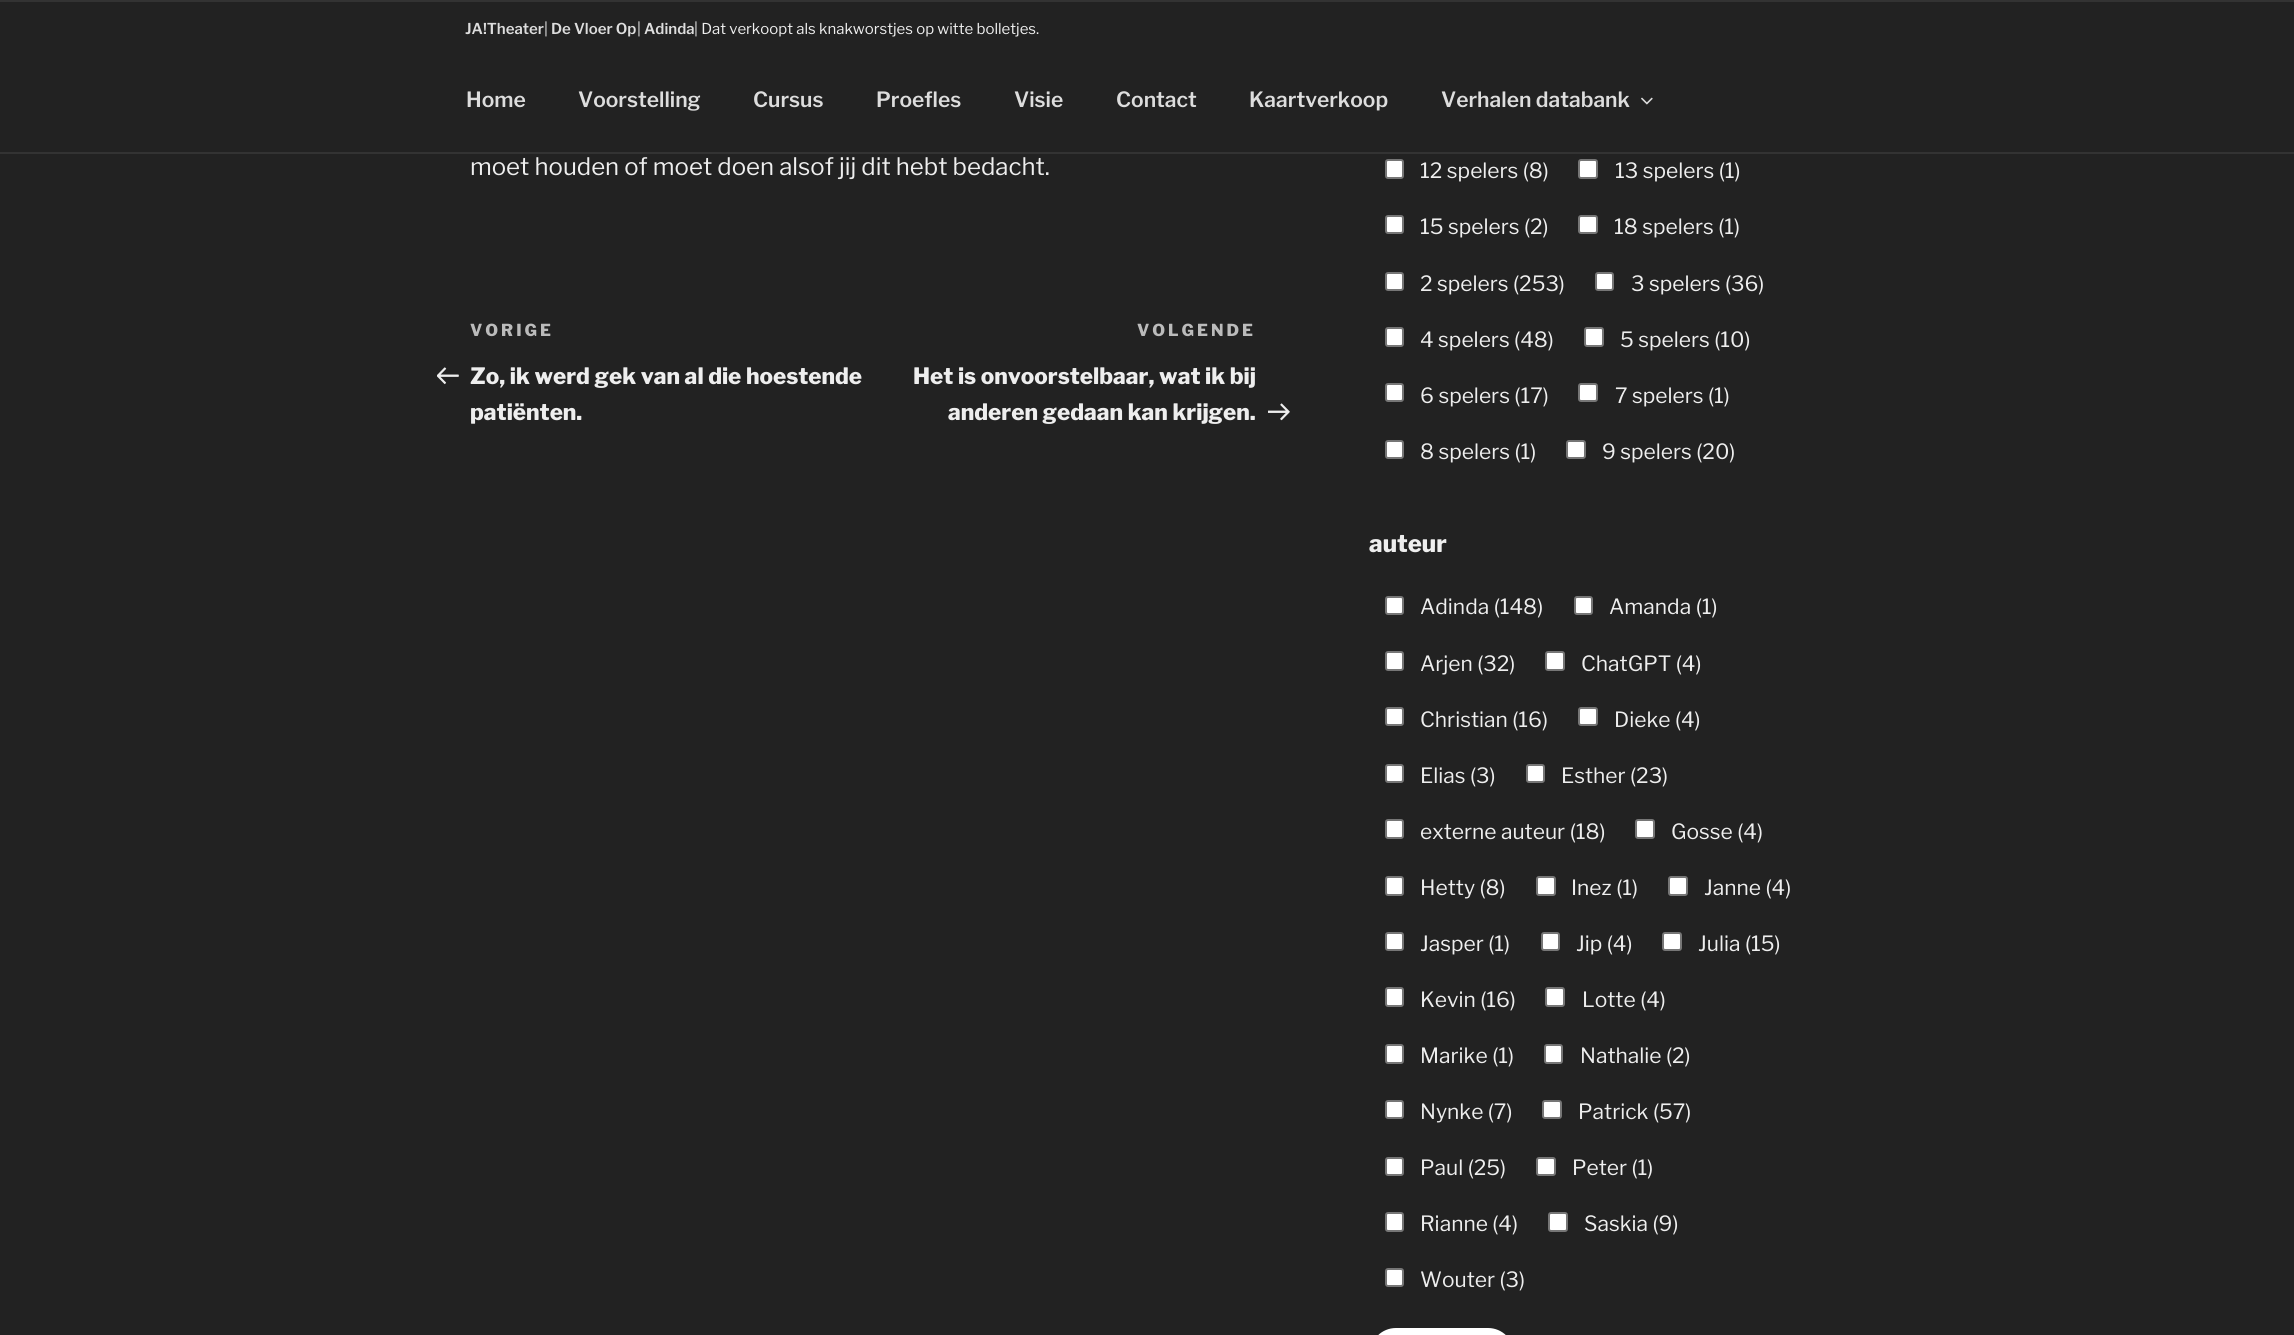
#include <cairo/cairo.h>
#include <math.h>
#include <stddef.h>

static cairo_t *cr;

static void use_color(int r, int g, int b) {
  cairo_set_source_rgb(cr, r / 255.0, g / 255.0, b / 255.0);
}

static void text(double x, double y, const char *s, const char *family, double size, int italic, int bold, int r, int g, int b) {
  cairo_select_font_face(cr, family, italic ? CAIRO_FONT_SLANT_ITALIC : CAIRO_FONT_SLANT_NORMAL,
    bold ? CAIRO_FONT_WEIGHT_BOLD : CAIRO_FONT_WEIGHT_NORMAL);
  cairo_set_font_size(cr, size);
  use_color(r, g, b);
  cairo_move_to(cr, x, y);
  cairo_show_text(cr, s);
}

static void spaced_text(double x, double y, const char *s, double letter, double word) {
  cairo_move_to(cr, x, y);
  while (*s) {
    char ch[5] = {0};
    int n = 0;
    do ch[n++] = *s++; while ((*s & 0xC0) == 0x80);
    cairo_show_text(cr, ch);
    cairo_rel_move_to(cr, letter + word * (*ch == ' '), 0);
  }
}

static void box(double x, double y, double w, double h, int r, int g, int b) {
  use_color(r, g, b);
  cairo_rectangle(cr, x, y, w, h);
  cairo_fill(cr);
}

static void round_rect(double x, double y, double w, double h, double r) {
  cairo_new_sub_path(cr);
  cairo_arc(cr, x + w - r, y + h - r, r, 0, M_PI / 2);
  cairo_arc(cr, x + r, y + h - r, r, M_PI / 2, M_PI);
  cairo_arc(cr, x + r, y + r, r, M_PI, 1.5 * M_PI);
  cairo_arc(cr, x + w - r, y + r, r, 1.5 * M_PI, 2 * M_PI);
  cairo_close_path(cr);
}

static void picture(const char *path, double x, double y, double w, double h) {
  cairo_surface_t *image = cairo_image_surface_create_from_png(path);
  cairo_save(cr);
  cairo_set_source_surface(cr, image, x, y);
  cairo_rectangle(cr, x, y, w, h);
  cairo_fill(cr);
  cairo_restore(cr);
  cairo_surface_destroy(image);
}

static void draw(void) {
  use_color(34, 34, 34);
  cairo_paint(cr);
  box(0, 0, 2294, 2, 51, 51, 51);
  box(0, 152, 2294, 2, 51, 51, 51);
  picture("img_01.png", 1641, 97, 12, 8);
  picture("img_02.png", 437, 367, 22, 18);
  picture("img_03.png", 1268, 403, 22, 18);
  use_color(255, 255, 255);
  round_rect(1386, 160, 17, 18, 2);
  cairo_fill_preserve(cr);
  use_color(118, 118, 118);
  cairo_stroke(cr);
  use_color(255, 255, 255);
  round_rect(1579, 160, 18, 18, 2);
  cairo_fill_preserve(cr);
  use_color(118, 118, 118);
  cairo_stroke(cr);
  use_color(255, 255, 255);
  round_rect(1386, 216, 17, 17, 2);
  cairo_fill_preserve(cr);
  use_color(118, 118, 118);
  cairo_stroke(cr);
  use_color(255, 255, 255);
  round_rect(1579, 216, 18, 17, 2);
  cairo_fill_preserve(cr);
  use_color(118, 118, 118);
  cairo_stroke(cr);
  use_color(255, 255, 255);
  round_rect(1386, 273, 17, 17, 2);
  cairo_fill_preserve(cr);
  use_color(118, 118, 118);
  cairo_stroke(cr);
  use_color(255, 255, 255);
  round_rect(1596, 273, 17, 17, 2);
  cairo_fill_preserve(cr);
  use_color(118, 118, 118);
  cairo_stroke(cr);
  use_color(255, 255, 255);
  round_rect(1386, 328, 17, 18, 2);
  cairo_fill_preserve(cr);
  use_color(118, 118, 118);
  cairo_stroke(cr);
  use_color(255, 255, 255);
  round_rect(1585, 328, 18, 18, 2);
  cairo_fill_preserve(cr);
  use_color(118, 118, 118);
  cairo_stroke(cr);
  use_color(255, 255, 255);
  round_rect(1386, 384, 17, 17, 2);
  cairo_fill_preserve(cr);
  use_color(118, 118, 118);
  cairo_stroke(cr);
  use_color(255, 255, 255);
  round_rect(1579, 384, 18, 17, 2);
  cairo_fill_preserve(cr);
  use_color(118, 118, 118);
  cairo_stroke(cr);
  use_color(255, 255, 255);
  round_rect(1386, 441, 17, 17, 2);
  cairo_fill_preserve(cr);
  use_color(118, 118, 118);
  cairo_stroke(cr);
  use_color(255, 255, 255);
  round_rect(1567, 441, 18, 17, 2);
  cairo_fill_preserve(cr);
  use_color(118, 118, 118);
  cairo_stroke(cr);
  use_color(255, 255, 255);
  round_rect(1386, 597, 17, 17, 2);
  cairo_fill_preserve(cr);
  use_color(118, 118, 118);
  cairo_stroke(cr);
  use_color(255, 255, 255);
  round_rect(1575, 597, 17, 17, 2);
  cairo_fill_preserve(cr);
  use_color(118, 118, 118);
  cairo_stroke(cr);
  use_color(255, 255, 255);
  round_rect(1386, 652, 17, 18, 2);
  cairo_fill_preserve(cr);
  use_color(118, 118, 118);
  cairo_stroke(cr);
  use_color(255, 255, 255);
  round_rect(1546, 652, 18, 18, 2);
  cairo_fill_preserve(cr);
  use_color(118, 118, 118);
  cairo_stroke(cr);
  use_color(255, 255, 255);
  round_rect(1386, 708, 17, 17, 2);
  cairo_fill_preserve(cr);
  use_color(118, 118, 118);
  cairo_stroke(cr);
  use_color(255, 255, 255);
  round_rect(1579, 708, 18, 17, 2);
  cairo_fill_preserve(cr);
  use_color(118, 118, 118);
  cairo_stroke(cr);
  use_color(255, 255, 255);
  round_rect(1386, 765, 17, 17, 2);
  cairo_fill_preserve(cr);
  use_color(118, 118, 118);
  cairo_stroke(cr);
  use_color(255, 255, 255);
  round_rect(1527, 765, 17, 17, 2);
  cairo_fill_preserve(cr);
  use_color(118, 118, 118);
  cairo_stroke(cr);
  use_color(255, 255, 255);
  round_rect(1386, 820, 17, 18, 2);
  cairo_fill_preserve(cr);
  use_color(118, 118, 118);
  cairo_stroke(cr);
  use_color(255, 255, 255);
  round_rect(1636, 820, 18, 18, 2);
  cairo_fill_preserve(cr);
  use_color(118, 118, 118);
  cairo_stroke(cr);
  use_color(255, 255, 255);
  round_rect(1386, 877, 17, 18, 2);
  cairo_fill_preserve(cr);
  use_color(118, 118, 118);
  cairo_stroke(cr);
  use_color(255, 255, 255);
  round_rect(1537, 877, 18, 18, 2);
  cairo_fill_preserve(cr);
  use_color(118, 118, 118);
  cairo_stroke(cr);
  use_color(255, 255, 255);
  round_rect(1669, 877, 18, 18, 2);
  cairo_fill_preserve(cr);
  use_color(118, 118, 118);
  cairo_stroke(cr);
  use_color(255, 255, 255);
  round_rect(1386, 933, 17, 17, 2);
  cairo_fill_preserve(cr);
  use_color(118, 118, 118);
  cairo_stroke(cr);
  use_color(255, 255, 255);
  round_rect(1542, 933, 17, 17, 2);
  cairo_fill_preserve(cr);
  use_color(118, 118, 118);
  cairo_stroke(cr);
  use_color(255, 255, 255);
  round_rect(1663, 933, 18, 17, 2);
  cairo_fill_preserve(cr);
  use_color(118, 118, 118);
  cairo_stroke(cr);
  use_color(255, 255, 255);
  round_rect(1386, 988, 17, 18, 2);
  cairo_fill_preserve(cr);
  use_color(118, 118, 118);
  cairo_stroke(cr);
  use_color(255, 255, 255);
  round_rect(1546, 988, 18, 18, 2);
  cairo_fill_preserve(cr);
  use_color(118, 118, 118);
  cairo_stroke(cr);
  use_color(255, 255, 255);
  round_rect(1386, 1045, 17, 18, 2);
  cairo_fill_preserve(cr);
  use_color(118, 118, 118);
  cairo_stroke(cr);
  use_color(255, 255, 255);
  round_rect(1545, 1045, 17, 18, 2);
  cairo_fill_preserve(cr);
  use_color(118, 118, 118);
  cairo_stroke(cr);
  use_color(255, 255, 255);
  round_rect(1386, 1101, 17, 17, 2);
  cairo_fill_preserve(cr);
  use_color(118, 118, 118);
  cairo_stroke(cr);
  use_color(255, 255, 255);
  round_rect(1543, 1101, 18, 17, 2);
  cairo_fill_preserve(cr);
  use_color(118, 118, 118);
  cairo_stroke(cr);
  use_color(255, 255, 255);
  round_rect(1386, 1158, 17, 17, 2);
  cairo_fill_preserve(cr);
  use_color(118, 118, 118);
  cairo_stroke(cr);
  use_color(255, 255, 255);
  round_rect(1537, 1158, 18, 17, 2);
  cairo_fill_preserve(cr);
  use_color(118, 118, 118);
  cairo_stroke(cr);
  use_color(255, 255, 255);
  round_rect(1386, 1213, 17, 18, 2);
  cairo_fill_preserve(cr);
  use_color(118, 118, 118);
  cairo_stroke(cr);
  use_color(255, 255, 255);
  round_rect(1549, 1213, 18, 18, 2);
  cairo_fill_preserve(cr);
  use_color(118, 118, 118);
  cairo_stroke(cr);
  use_color(255, 255, 255);
  round_rect(1386, 1269, 17, 17, 2);
  cairo_fill_preserve(cr);
  use_color(118, 118, 118);
  cairo_stroke(cr);
  use_color(255, 255, 255);
  round_rect(1370, 1328, 144, 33, 26);
  cairo_fill(cr);
  text(465, 34, "JA!Theater", "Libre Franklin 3 Thin", 15, 0, 0, 221, 221, 221);
  text(544, 34, "|", "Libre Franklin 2 Thin", 15, 0, 0, 238, 238, 238);
  text(551, 34, "De Vloer Op", "Libre Franklin 3 Thin", 15, 0, 0, 221, 221, 221);
  text(637, 34, "|", "Libre Franklin 2 Thin", 15, 0, 0, 238, 238, 238);
  text(644, 34, "Adinda", "Libre Franklin 3 Thin", 15, 0, 0, 221, 221, 221);
  text(694, 34, "| Dat verkoopt als knakworstjes op witte bolletjes.", "Libre Franklin 2 Thin", 15, 0, 0, 238, 238, 238);
  text(466, 107, "Home", "Libre Franklin 3 Thin", 21, 0, 0, 221, 221, 221);
  text(578, 107, "Voorstelling", "Libre Franklin 3 Thin", 21, 0, 0, 221, 221, 221);
  text(753, 107, "Cursus", "Libre Franklin 3 Thin", 21, 0, 0, 221, 221, 221);
  text(876, 107, "Proefles", "Libre Franklin 3 Thin", 21, 0, 0, 221, 221, 221);
  text(1014, 107, "Visie", "Libre Franklin 3 Thin", 21, 0, 0, 221, 221, 221);
  text(1116, 107, "Contact", "Libre Franklin 3 Thin", 21, 0, 0, 221, 221, 221);
  text(1249, 107, "Kaartverkoop", "Libre Franklin 3 Thin", 21, 0, 0, 221, 221, 221);
  text(1441, 107, "Verhalen databank", "Libre Franklin 3 Thin", 21, 0, 0, 221, 221, 221);
  text(470, 175, "moet houden of moet doen alsof jij dit hebt bedacht.", "Libre Franklin 2 Thin", 24, 0, 0, 238, 238, 238);
  cairo_select_font_face(cr, "Libre Franklin Thin", CAIRO_FONT_SLANT_NORMAL, CAIRO_FONT_WEIGHT_NORMAL);
  cairo_set_font_size(cr, 16.5);
  use_color(187, 187, 187);
  spaced_text(470, 336, "VORIGE", 3, 0);
  text(470, 384, "Zo, ik werd gek van al die hoestende", "Libre Franklin Thin", 22.5, 0, 0, 238, 238, 238);
  text(470, 420, "patiënten.", "Libre Franklin Thin", 22.5, 0, 0, 238, 238, 238);
  cairo_set_font_size(cr, 16.5);
  use_color(187, 187, 187);
  spaced_text(1137, 336, "VOLGENDE", 3, 0);
  text(913, 384, "Het is onvoorstelbaar, wat ik bij", "Libre Franklin Thin", 22.5, 0, 0, 238, 238, 238);
  text(948, 420, "anderen gedaan kan krijgen.", "Libre Franklin Thin", 22.5, 0, 0, 238, 238, 238);
  text(1420, 178, "12 spelers (8)", "Libre Franklin 2 Thin", 21, 0, 0, 238, 238, 238);
  text(1615, 178, "13 spelers (1)", "Libre Franklin 2 Thin", 21, 0, 0, 238, 238, 238);
  text(1420, 234, "15 spelers (2)", "Libre Franklin 2 Thin", 21, 0, 0, 238, 238, 238);
  text(1614, 234, "18 spelers (1)", "Libre Franklin 2 Thin", 21, 0, 0, 238, 238, 238);
  text(1420, 291, "2 spelers (253)", "Libre Franklin 2 Thin", 21, 0, 0, 238, 238, 238);
  text(1631, 291, "3 spelers (36)", "Libre Franklin 2 Thin", 21, 0, 0, 238, 238, 238);
  text(1420, 347, "4 spelers (48)", "Libre Franklin 2 Thin", 21, 0, 0, 238, 238, 238);
  text(1620, 347, "5 spelers (10)", "Libre Franklin 2 Thin", 21, 0, 0, 238, 238, 238);
  text(1420, 403, "6 spelers (17)", "Libre Franklin 2 Thin", 21, 0, 0, 238, 238, 238);
  text(1615, 403, "7 spelers (1)", "Libre Franklin 2 Thin", 21, 0, 0, 238, 238, 238);
  text(1420, 459, "8 spelers (1)", "Libre Franklin 2 Thin", 21, 0, 0, 238, 238, 238);
  text(1602, 459, "9 spelers (20)", "Libre Franklin 2 Thin", 21, 0, 0, 238, 238, 238);
  text(1369, 552, "auteur", "Libre Franklin Thin", 24, 0, 0, 238, 238, 238);
  text(1420, 614, "Adinda (148)", "Libre Franklin 2 Thin", 21, 0, 0, 238, 238, 238);
  text(1609, 614, "Amanda (1)", "Libre Franklin 2 Thin", 21, 0, 0, 238, 238, 238);
  text(1420, 671, "Arjen (32)", "Libre Franklin 2 Thin", 21, 0, 0, 238, 238, 238);
  text(1581, 671, "ChatGPT (4)", "Libre Franklin 2 Thin", 21, 0, 0, 238, 238, 238);
  text(1420, 727, "Christian (16)", "Libre Franklin 2 Thin", 21, 0, 0, 238, 238, 238);
  text(1614, 727, "Dieke (4)", "Libre Franklin 2 Thin", 21, 0, 0, 238, 238, 238);
  text(1420, 783, "Elias (3)", "Libre Franklin 2 Thin", 21, 0, 0, 238, 238, 238);
  text(1561, 783, "Esther (23)", "Libre Franklin 2 Thin", 21, 0, 0, 238, 238, 238);
  text(1420, 839, "externe auteur (18)", "Libre Franklin 2 Thin", 21, 0, 0, 238, 238, 238);
  text(1671, 839, "Gosse (4)", "Libre Franklin 2 Thin", 21, 0, 0, 238, 238, 238);
  text(1420, 895, "Hetty (8)", "Libre Franklin 2 Thin", 21, 0, 0, 238, 238, 238);
  text(1571, 895, "Inez (1)", "Libre Franklin 2 Thin", 21, 0, 0, 238, 238, 238);
  text(1704, 895, "Janne (4)", "Libre Franklin 2 Thin", 21, 0, 0, 238, 238, 238);
  text(1420, 951, "Jasper (1)", "Libre Franklin 2 Thin", 21, 0, 0, 238, 238, 238);
  text(1576, 951, "Jip (4)", "Libre Franklin 2 Thin", 21, 0, 0, 238, 238, 238);
  text(1698, 951, "Julia (15)", "Libre Franklin 2 Thin", 21, 0, 0, 238, 238, 238);
  text(1420, 1007, "Kevin (16)", "Libre Franklin 2 Thin", 21, 0, 0, 238, 238, 238);
  text(1582, 1007, "Lotte (4)", "Libre Franklin 2 Thin", 21, 0, 0, 238, 238, 238);
  text(1420, 1063, "Marike (1)", "Libre Franklin 2 Thin", 21, 0, 0, 238, 238, 238);
  text(1580, 1063, "Nathalie (2)", "Libre Franklin 2 Thin", 21, 0, 0, 238, 238, 238);
  text(1420, 1119, "Nynke (7)", "Libre Franklin 2 Thin", 21, 0, 0, 238, 238, 238);
  text(1578, 1119, "Patrick (57)", "Libre Franklin 2 Thin", 21, 0, 0, 238, 238, 238);
  text(1420, 1175, "Paul (25)", "Libre Franklin 2 Thin", 21, 0, 0, 238, 238, 238);
  text(1572, 1175, "Peter (1)", "Libre Franklin 2 Thin", 21, 0, 0, 238, 238, 238);
  text(1420, 1231, "Rianne (4)", "Libre Franklin 2 Thin", 21, 0, 0, 238, 238, 238);
  text(1584, 1231, "Saskia (9)", "Libre Franklin 2 Thin", 21, 0, 0, 238, 238, 238);
  text(1420, 1287, "Wouter (3)", "Libre Franklin 2 Thin", 21, 0, 0, 238, 238, 238);
}

int main(void) {
  cairo_surface_t *surface = cairo_image_surface_create(CAIRO_FORMAT_RGB24, 2294, 1335);
  cr = cairo_create(surface);
  cairo_font_options_t *options = cairo_font_options_create();
  cairo_font_options_set_hint_metrics(options, CAIRO_HINT_METRICS_OFF);
  cairo_font_options_set_hint_style(options, CAIRO_HINT_STYLE_NONE);
  cairo_set_font_options(cr, options);
  cairo_set_miter_limit(cr, 4);
  draw();
  cairo_surface_write_to_png(surface, "out.png");
  cairo_font_options_destroy(options);
  cairo_destroy(cr);
  cairo_surface_destroy(surface);
  return 0;
}
